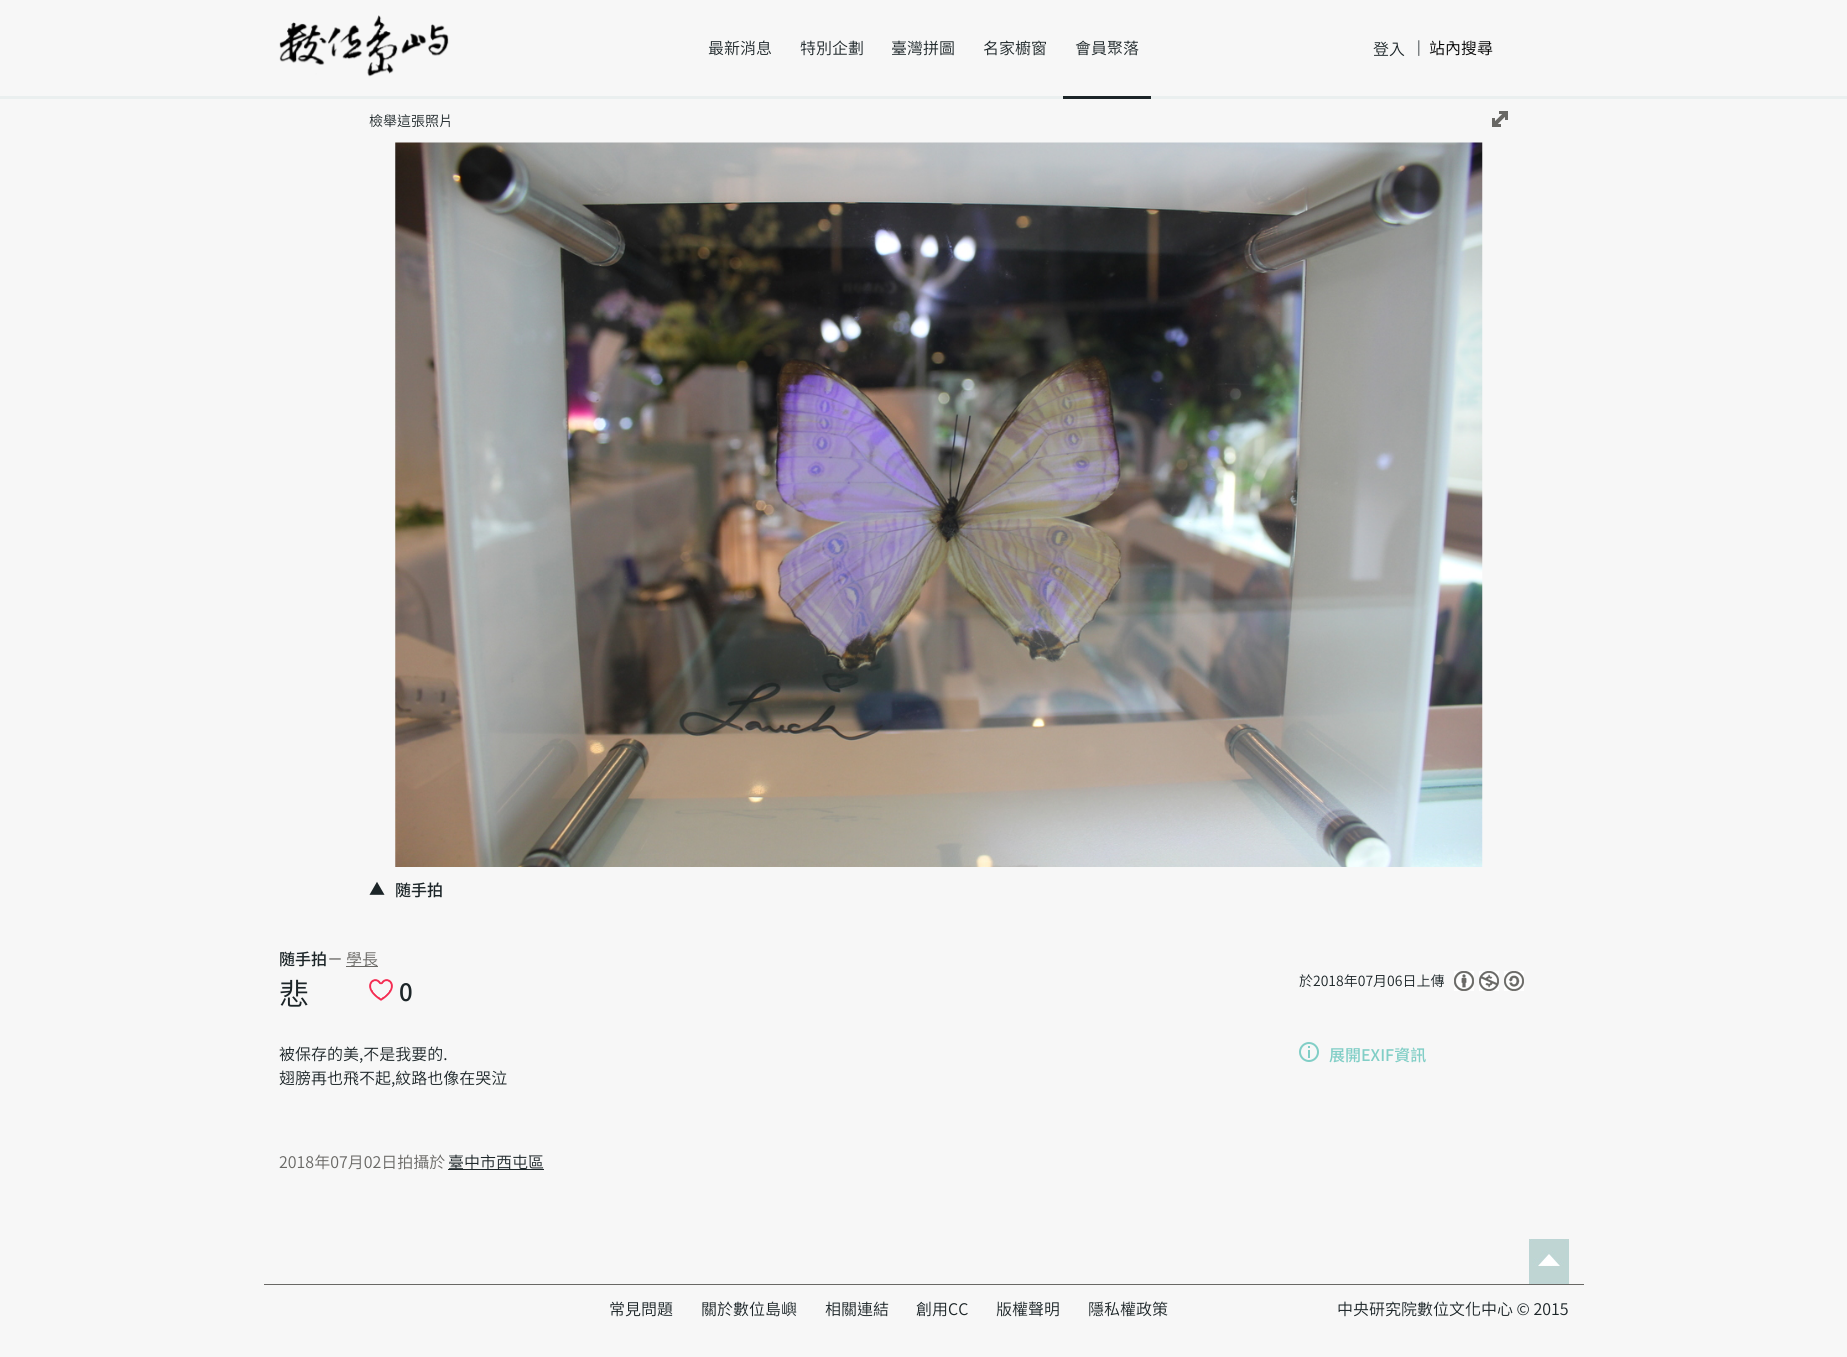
#include <cairo/cairo.h>
#include <math.h>
#include <stddef.h>

static cairo_t *cr;

static void use_color(int r, int g, int b) {
  cairo_set_source_rgb(cr, r / 255.0, g / 255.0, b / 255.0);
}

static void text(double x, double y, const char *s, const char *family, double size, int italic, int bold, int r, int g, int b) {
  cairo_select_font_face(cr, family, italic ? CAIRO_FONT_SLANT_ITALIC : CAIRO_FONT_SLANT_NORMAL,
    bold ? CAIRO_FONT_WEIGHT_BOLD : CAIRO_FONT_WEIGHT_NORMAL);
  cairo_set_font_size(cr, size);
  use_color(r, g, b);
  cairo_move_to(cr, x, y);
  cairo_show_text(cr, s);
}

static void box(double x, double y, double w, double h, int r, int g, int b) {
  use_color(r, g, b);
  cairo_rectangle(cr, x, y, w, h);
  cairo_fill(cr);
}

static void picture(const char *path, double x, double y, double w, double h) {
  cairo_surface_t *image = cairo_image_surface_create_from_png(path);
  cairo_save(cr);
  cairo_set_source_surface(cr, image, x, y);
  cairo_rectangle(cr, x, y, w, h);
  cairo_fill(cr);
  cairo_restore(cr);
  cairo_surface_destroy(image);
}

static void draw(void) {
  use_color(247, 247, 247);
  cairo_paint(cr);
  box(0, 96, 1847, 3, 234, 239, 239);
  picture("img_01.png", 279, 15, 170, 62);
  box(1063, 96, 88, 3, 28, 37, 40);
  picture("img_02.png", 1492, 111, 16, 16);
  picture("img_03.png", 395, 142, 1088, 725);
  box(346, 966, 32, 1, 105, 104, 101);
  picture("img_04.png", 369, 979, 24, 22);
  picture("img_05.png", 1454, 971, 20, 20);
  picture("img_06.png", 1479, 971, 20, 20);
  picture("img_07.png", 1504, 971, 20, 20);
  box(448, 1169, 96, 1, 28, 37, 40);
  picture("img_08.png", 1299, 1042, 20, 20);
  box(264, 1284, 1320, 1, 105, 104, 101);
  picture("img_09.png", 1529, 1239, 40, 45);
  text(708, 54, "最新消息", "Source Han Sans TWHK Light", 16, 0, 0, 28, 37, 40);
  text(800, 54, "特別企劃", "Source Han Sans TWHK Light", 16, 0, 0, 28, 37, 40);
  text(891, 54, "臺灣拼圖", "Source Han Sans TWHK Light", 16, 0, 0, 28, 37, 40);
  text(983, 54, "名家櫥窗", "Source Han Sans TWHK Light", 16, 0, 0, 28, 37, 40);
  text(1075, 54, "會員聚落", "Source Han Sans TWHK Light", 16, 0, 0, 28, 37, 40);
  text(1373, 55, "登入", "Source Han Sans TWHK Light", 16, 0, 0, 28, 37, 40);
  text(1417, 52, "|", "Source Han Sans TWHK Light", 14, 0, 0, 28, 37, 40);
  text(1429, 54, "站內搜尋", "Source Han Sans TWHK Light", 16, 0, 0, 0, 0, 0);
  text(369, 126, "檢舉這張照片", "Source Han Sans TWHK Light", 14, 0, 0, 28, 37, 40);
  text(369, 895, "▲", "Source Han Sans TWHK Light", 16, 0, 0, 28, 37, 40);
  text(395, 896, "随手拍", "Noto Sans CJK TC Medium", 16, 0, 0, 28, 37, 40);
  text(279, 965, "随手拍", "Noto Sans CJK TC Medium", 16, 0, 0, 28, 37, 40);
  text(327, 965, "－", "Noto Sans CJK TC Medium", 16, 0, 0, 105, 104, 101);
  text(346, 965, "學長", "Source Han Sans TWHK Light", 16, 0, 0, 105, 104, 101);
  text(279, 1005, "悲", "Source Han Sans TWHK Light", 30, 0, 0, 28, 37, 40);
  text(399, 1001, "0", "Noto Sans CJK TC Medium", 24, 0, 0, 28, 37, 40);
  text(1299, 986, "於2018年07月06日上傳", "Source Han Sans TWHK Light", 14, 0, 0, 28, 37, 40);
  text(279, 1060, "被保存的美,不是我要的.", "Source Han Sans TWHK Light", 16, 0, 0, 28, 37, 40);
  text(279, 1084, "翅膀再也飛不起,紋路也像在哭泣", "Source Han Sans TWHK Light", 16, 0, 0, 28, 37, 40);
  text(279, 1168, "2018年07月02日拍攝於", "Source Han Sans TWHK Light", 16, 0, 0, 105, 104, 101);
  text(448, 1168, "臺中市西屯區", "Source Han Sans TWHK Light", 16, 0, 0, 28, 37, 40);
  text(1329, 1061, "展開EXIF資訊", "Noto Sans CJK TC Medium", 16, 0, 0, 129, 206, 198);
  text(609, 1315, "常見問題", "Source Han Sans TWHK Light", 16, 0, 0, 28, 37, 40);
  text(701, 1315, "關於數位島嶼", "Source Han Sans TWHK Light", 16, 0, 0, 28, 37, 40);
  text(825, 1315, "相關連結", "Source Han Sans TWHK Light", 16, 0, 0, 28, 37, 40);
  text(916, 1315, "創用CC", "Source Han Sans TWHK Light", 16, 0, 0, 28, 37, 40);
  text(996, 1315, "版權聲明", "Source Han Sans TWHK Light", 16, 0, 0, 28, 37, 40);
  text(1088, 1315, "隱私權政策", "Source Han Sans TWHK Light", 16, 0, 0, 28, 37, 40);
  text(1337, 1315, "中央研究院數位文化中心 © 2015", "Source Han Sans TWHK Light", 16, 0, 0, 28, 37, 40);
}

int main(void) {
  cairo_surface_t *surface = cairo_image_surface_create(CAIRO_FORMAT_RGB24, 1847, 1357);
  cr = cairo_create(surface);
  cairo_font_options_t *options = cairo_font_options_create();
  cairo_font_options_set_hint_metrics(options, CAIRO_HINT_METRICS_OFF);
  cairo_font_options_set_hint_style(options, CAIRO_HINT_STYLE_NONE);
  cairo_set_font_options(cr, options);
  cairo_set_miter_limit(cr, 4);
  draw();
  cairo_surface_write_to_png(surface, "out.png");
  cairo_font_options_destroy(options);
  cairo_destroy(cr);
  cairo_surface_destroy(surface);
  return 0;
}
